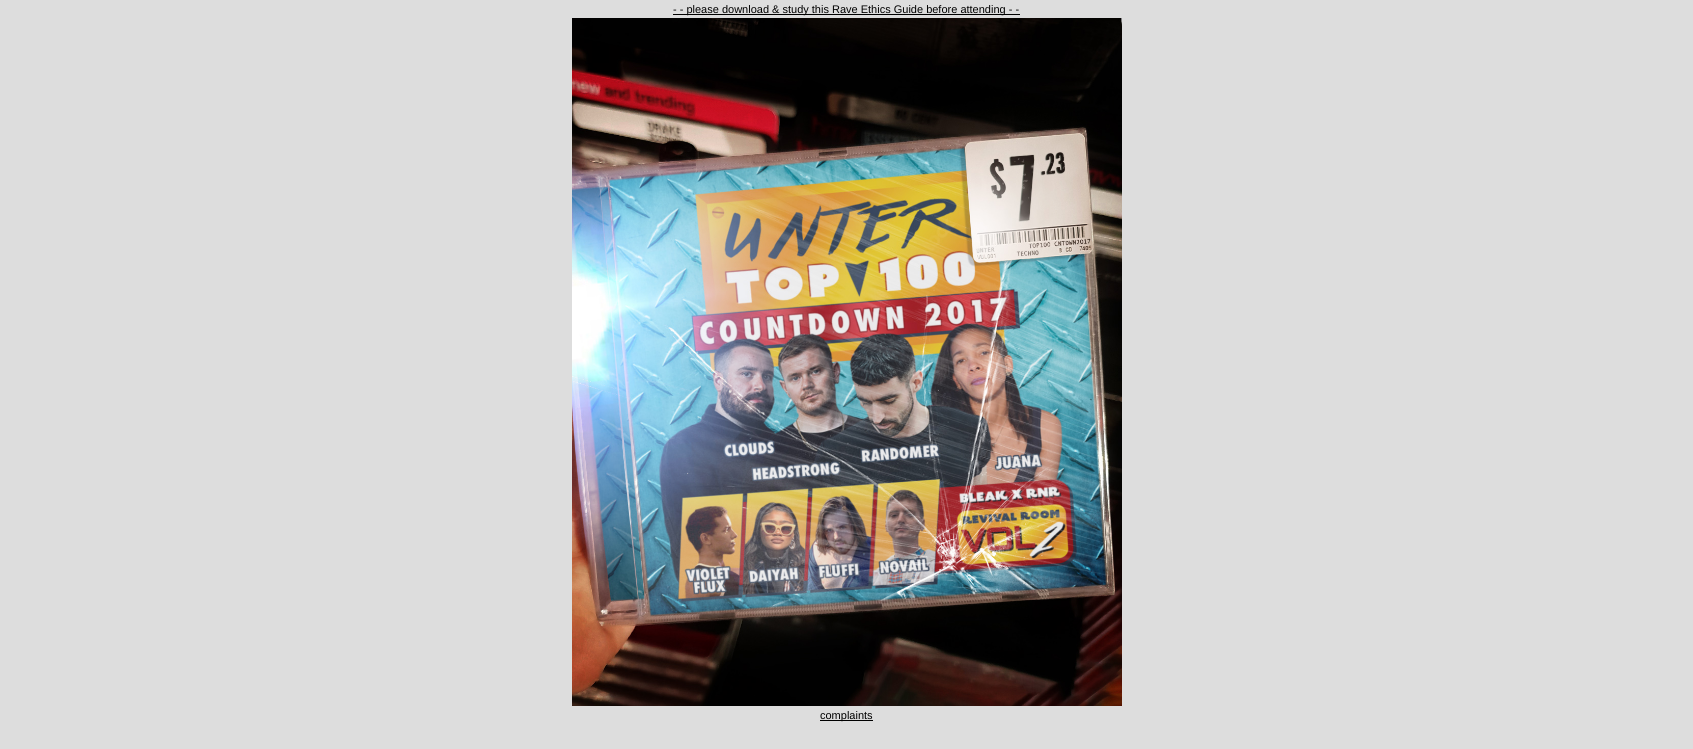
#include <cairo/cairo.h>
#include <math.h>
#include <stddef.h>

static cairo_t *cr;

static void use_color(int r, int g, int b) {
  cairo_set_source_rgb(cr, r / 255.0, g / 255.0, b / 255.0);
}

static void text(double x, double y, const char *s, const char *family, double size, int italic, int bold, int r, int g, int b) {
  cairo_select_font_face(cr, family, italic ? CAIRO_FONT_SLANT_ITALIC : CAIRO_FONT_SLANT_NORMAL,
    bold ? CAIRO_FONT_WEIGHT_BOLD : CAIRO_FONT_WEIGHT_NORMAL);
  cairo_set_font_size(cr, size);
  use_color(r, g, b);
  cairo_move_to(cr, x, y);
  cairo_show_text(cr, s);
}

static void box(double x, double y, double w, double h, int r, int g, int b) {
  use_color(r, g, b);
  cairo_rectangle(cr, x, y, w, h);
  cairo_fill(cr);
}

static void picture(const char *path, double x, double y, double w, double h) {
  cairo_surface_t *image = cairo_image_surface_create_from_png(path);
  cairo_save(cr);
  cairo_set_source_surface(cr, image, x, y);
  cairo_rectangle(cr, x, y, w, h);
  cairo_fill(cr);
  cairo_restore(cr);
  cairo_surface_destroy(image);
}

static void draw(void) {
  use_color(221, 221, 221);
  cairo_paint(cr);
  box(673, 14, 347, 1, 0, 0, 0);
  picture("img_01.png", 572, 18, 550, 688);
  box(820, 720, 53, 1, 0, 0, 0);
  text(673, 13, "- - please download & study this Rave Ethics Guide before attending - -", "Liberation Sans", 11, 0, 0, 0, 0, 0);
  text(820, 719, "complaints", "Liberation Sans", 11, 0, 0, 0, 0, 0);
}

int main(void) {
  cairo_surface_t *surface = cairo_image_surface_create(CAIRO_FORMAT_RGB24, 1693, 749);
  cr = cairo_create(surface);
  cairo_font_options_t *options = cairo_font_options_create();
  cairo_font_options_set_hint_metrics(options, CAIRO_HINT_METRICS_OFF);
  cairo_font_options_set_hint_style(options, CAIRO_HINT_STYLE_NONE);
  cairo_set_font_options(cr, options);
  cairo_set_miter_limit(cr, 4);
  draw();
  cairo_surface_write_to_png(surface, "out.png");
  cairo_font_options_destroy(options);
  cairo_destroy(cr);
  cairo_surface_destroy(surface);
  return 0;
}
